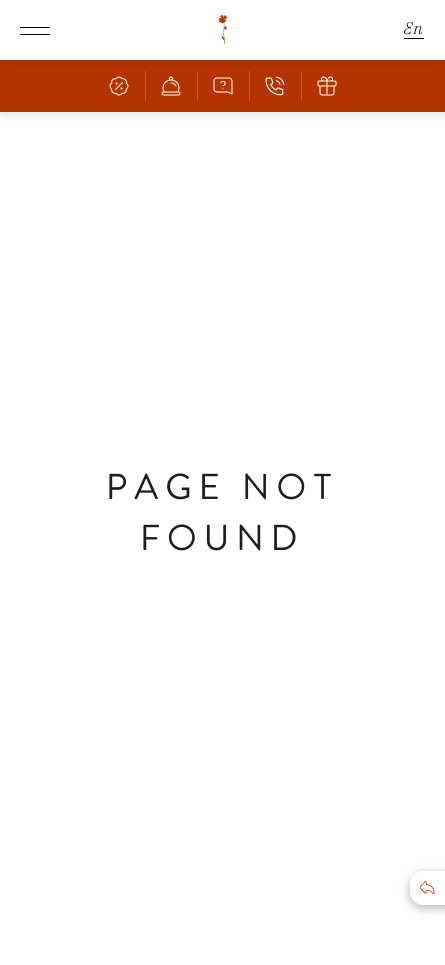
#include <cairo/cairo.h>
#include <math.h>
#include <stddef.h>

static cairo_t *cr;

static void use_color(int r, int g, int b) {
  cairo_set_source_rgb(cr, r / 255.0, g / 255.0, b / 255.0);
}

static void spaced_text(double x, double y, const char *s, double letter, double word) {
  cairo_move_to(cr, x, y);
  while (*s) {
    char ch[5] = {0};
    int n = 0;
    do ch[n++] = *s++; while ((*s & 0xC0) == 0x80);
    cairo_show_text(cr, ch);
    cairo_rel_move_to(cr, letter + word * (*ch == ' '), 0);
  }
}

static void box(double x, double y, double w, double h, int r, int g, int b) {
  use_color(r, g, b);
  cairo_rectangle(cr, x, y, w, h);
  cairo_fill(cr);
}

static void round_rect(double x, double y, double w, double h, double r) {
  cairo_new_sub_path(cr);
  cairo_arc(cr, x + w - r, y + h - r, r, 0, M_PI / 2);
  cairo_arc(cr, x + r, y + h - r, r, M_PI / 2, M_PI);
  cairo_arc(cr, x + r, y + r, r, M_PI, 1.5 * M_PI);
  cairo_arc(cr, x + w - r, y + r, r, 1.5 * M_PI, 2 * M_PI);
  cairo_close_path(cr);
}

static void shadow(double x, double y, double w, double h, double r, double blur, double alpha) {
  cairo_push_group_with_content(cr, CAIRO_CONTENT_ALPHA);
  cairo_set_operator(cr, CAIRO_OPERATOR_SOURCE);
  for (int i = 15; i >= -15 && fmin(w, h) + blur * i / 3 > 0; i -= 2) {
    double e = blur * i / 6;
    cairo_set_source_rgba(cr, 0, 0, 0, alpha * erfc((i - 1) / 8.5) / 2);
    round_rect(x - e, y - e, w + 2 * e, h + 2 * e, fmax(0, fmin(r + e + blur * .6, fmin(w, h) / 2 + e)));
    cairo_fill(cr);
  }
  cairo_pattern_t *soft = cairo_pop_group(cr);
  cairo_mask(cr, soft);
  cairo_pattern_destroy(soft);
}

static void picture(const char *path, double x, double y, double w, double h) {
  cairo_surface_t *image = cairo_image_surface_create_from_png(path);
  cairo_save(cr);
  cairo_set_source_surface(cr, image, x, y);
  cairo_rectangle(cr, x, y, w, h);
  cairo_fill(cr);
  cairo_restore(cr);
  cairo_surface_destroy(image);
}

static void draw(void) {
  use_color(255, 255, 255);
  cairo_paint(cr);
  use_color(0, 0, 0);
  shadow(0, 64, 445, 52, 0, 5, 0.1);
  box(0, 60, 445, 52, 181, 51, 0);
  picture("img_02.png", 109, 76, 20, 20);
  box(145, 71, 1, 30, 196, 92, 51);
  picture("img_03.png", 161, 76, 20, 20);
  box(197, 71, 1, 30, 196, 92, 51);
  picture("img_04.png", 213, 77, 20, 18);
  box(249, 71, 1, 30, 196, 92, 51);
  picture("img_05.png", 265, 76, 20, 20);
  box(301, 71, 1, 30, 196, 92, 51);
  picture("img_06.png", 317, 76, 20, 20);
  use_color(0, 0, 0);
  shadow(0, 4, 445, 60, 0, 5, 0.1);
  box(0, 0, 445, 60, 255, 255, 255);
  box(20, 27, 30, 1, 0, 0, 0);
  box(20, 34, 30, 1, 0, 0, 0);
  picture("img_01.png", 218, 15, 9, 30);
  box(404, 38, 20, 1, 0, 0, 0);
  use_color(0, 0, 0);
  shadow(409, 873, 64, 36, 14, 4.5, 0.25);
  use_color(255, 255, 255);
  cairo_new_path(cr);
  cairo_move_to(cr, 423, 871);
  cairo_line_to(cr, 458, 871);
  cairo_line_to(cr, 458, 905);
  cairo_line_to(cr, 423, 905);
  cairo_curve_to(cr, 416, 905, 410, 899, 410, 892);
  cairo_line_to(cr, 410, 884);
  cairo_curve_to(cr, 410, 877, 416, 871, 423, 871);
  cairo_close_path(cr);
  cairo_fill(cr);
  picture("img_07.png", 420, 881, 15, 13);
  cairo_select_font_face(cr, "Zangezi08 Light", CAIRO_FONT_SLANT_NORMAL, CAIRO_FONT_WEIGHT_NORMAL);
  cairo_set_font_size(cr, 16);
  use_color(0, 0, 0);
  spaced_text(404, 34, "En", 1, 0);
  cairo_select_font_face(cr, "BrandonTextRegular", CAIRO_FONT_SLANT_NORMAL, CAIRO_FONT_WEIGHT_NORMAL);
  cairo_set_font_size(cr, 36);
  use_color(30, 30, 30);
  spaced_text(106, 499, "PAGE NOT", 7, 0);
  spaced_text(140, 550, "FOUND", 7, 0);
}

int main(void) {
  cairo_surface_t *surface = cairo_image_surface_create(CAIRO_FORMAT_RGB24, 445, 965);
  cr = cairo_create(surface);
  cairo_font_options_t *options = cairo_font_options_create();
  cairo_font_options_set_hint_metrics(options, CAIRO_HINT_METRICS_OFF);
  cairo_font_options_set_hint_style(options, CAIRO_HINT_STYLE_NONE);
  cairo_set_font_options(cr, options);
  cairo_set_miter_limit(cr, 4);
  draw();
  cairo_surface_write_to_png(surface, "out.png");
  cairo_font_options_destroy(options);
  cairo_destroy(cr);
  cairo_surface_destroy(surface);
  return 0;
}
